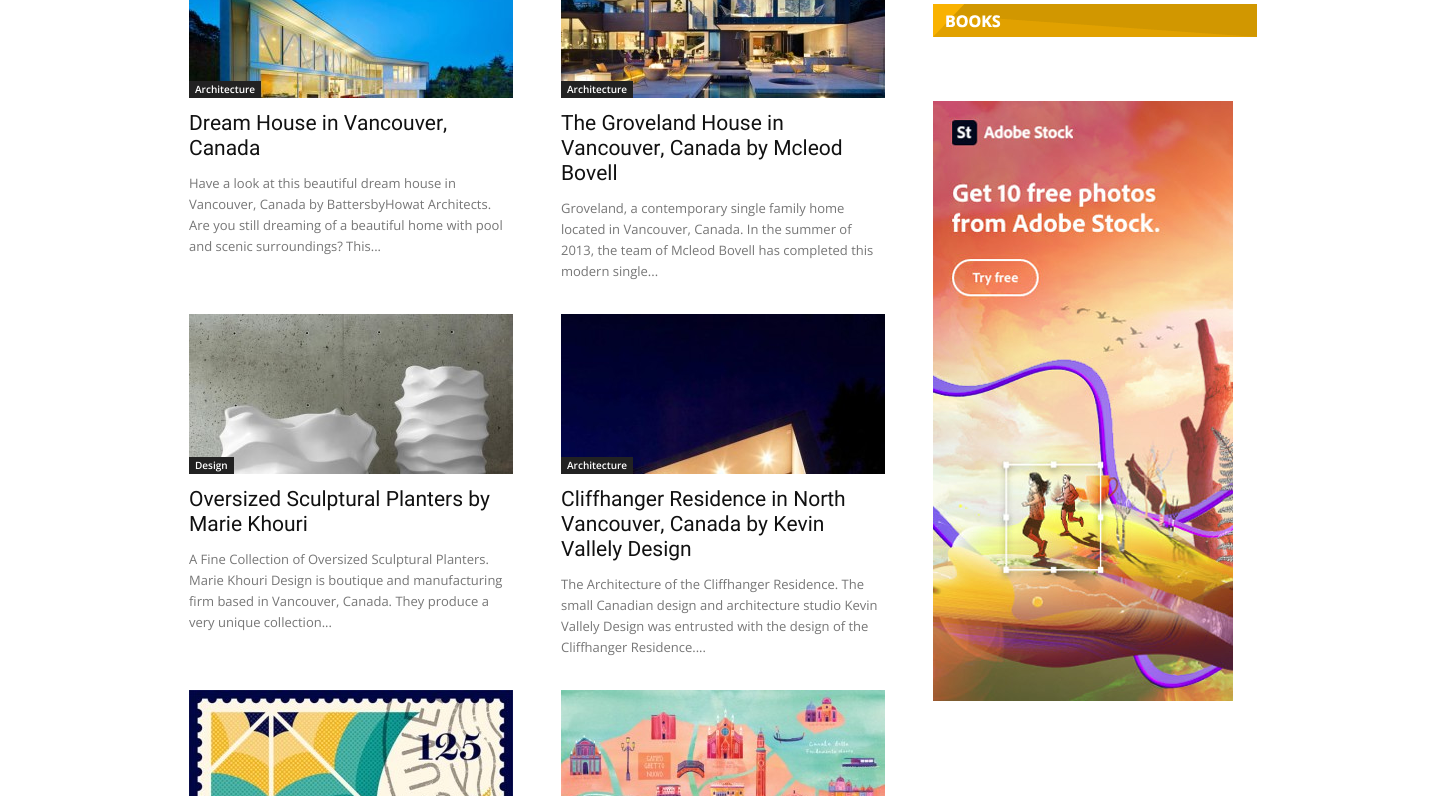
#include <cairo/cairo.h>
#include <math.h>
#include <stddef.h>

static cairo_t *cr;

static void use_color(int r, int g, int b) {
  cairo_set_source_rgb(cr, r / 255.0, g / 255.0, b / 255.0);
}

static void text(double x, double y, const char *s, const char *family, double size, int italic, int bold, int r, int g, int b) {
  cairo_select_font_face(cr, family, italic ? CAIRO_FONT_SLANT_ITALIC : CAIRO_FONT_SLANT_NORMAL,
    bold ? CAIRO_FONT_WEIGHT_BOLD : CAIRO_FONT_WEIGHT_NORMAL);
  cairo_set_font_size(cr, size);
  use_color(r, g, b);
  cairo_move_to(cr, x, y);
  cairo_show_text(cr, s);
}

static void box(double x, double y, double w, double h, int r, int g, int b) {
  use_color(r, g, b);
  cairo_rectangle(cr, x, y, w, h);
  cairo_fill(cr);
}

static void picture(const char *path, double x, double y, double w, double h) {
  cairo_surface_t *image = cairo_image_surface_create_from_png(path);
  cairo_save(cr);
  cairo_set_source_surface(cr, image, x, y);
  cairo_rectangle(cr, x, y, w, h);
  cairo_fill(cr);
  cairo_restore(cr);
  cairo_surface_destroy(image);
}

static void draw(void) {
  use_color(255, 255, 255);
  cairo_paint(cr);
  picture("img_01.png", 189, 0, 324, 98);
  box(189, 81, 72, 17, 34, 34, 34);
  picture("img_02.png", 561, 0, 324, 98);
  box(561, 81, 72, 17, 34, 34, 34);
  picture("img_03.png", 189, 314, 324, 160);
  box(189, 457, 45, 17, 34, 34, 34);
  picture("img_04.png", 561, 314, 324, 160);
  box(561, 457, 72, 17, 34, 34, 34);
  picture("img_05.png", 189, 690, 324, 106);
  picture("img_06.png", 561, 690, 324, 106);
  picture("img_07.png", 933, 4, 324, 33);
  picture("img_08.png", 933, 101, 300, 600);
  text(195, 93, "Architecture", "Open Sans SemiBold", 10, 0, 0, 255, 255, 255);
  text(189, 130, "Dream House in Vancouver,", "Roboto", 21, 0, 0, 17, 17, 17);
  text(189, 155, "Canada", "Roboto", 21, 0, 0, 17, 17, 17);
  text(189, 188, "Have a look at this beautiful dream house in", "Open Sans", 13, 0, 0, 118, 118, 118);
  text(189, 209, "Vancouver, Canada by BattersbyHowat Architects.", "Open Sans", 13, 0, 0, 118, 118, 118);
  text(189, 230, "Are you still dreaming of a beautiful home with pool", "Open Sans", 13, 0, 0, 118, 118, 118);
  text(189, 251, "and scenic surroundings? This...", "Open Sans", 13, 0, 0, 118, 118, 118);
  text(567, 93, "Architecture", "Open Sans SemiBold", 10, 0, 0, 255, 255, 255);
  text(561, 130, "The Groveland House in", "Roboto", 21, 0, 0, 17, 17, 17);
  text(561, 155, "Vancouver, Canada by Mcleod", "Roboto", 21, 0, 0, 17, 17, 17);
  text(561, 180, "Bovell", "Roboto", 21, 0, 0, 17, 17, 17);
  text(561, 213, "Groveland, a contemporary single family home", "Open Sans", 13, 0, 0, 118, 118, 118);
  text(561, 234, "located in Vancouver, Canada. In the summer of", "Open Sans", 13, 0, 0, 118, 118, 118);
  text(561, 255, "2013, the team of Mcleod Bovell has completed this", "Open Sans", 13, 0, 0, 118, 118, 118);
  text(561, 276, "modern single...", "Open Sans", 13, 0, 0, 118, 118, 118);
  text(195, 469, "Design", "Open Sans SemiBold", 10, 0, 0, 255, 255, 255);
  text(189, 506, "Oversized Sculptural Planters by", "Roboto", 21, 0, 0, 17, 17, 17);
  text(189, 531, "Marie Khouri", "Roboto", 21, 0, 0, 17, 17, 17);
  text(189, 564, "A Fine Collection of Oversized Sculptural Planters.", "Open Sans", 13, 0, 0, 118, 118, 118);
  text(189, 585, "Marie Khouri Design is boutique and manufacturing", "Open Sans", 13, 0, 0, 118, 118, 118);
  text(189, 606, "firm based in Vancouver, Canada. They produce a", "Open Sans", 13, 0, 0, 118, 118, 118);
  text(189, 627, "very unique collection...", "Open Sans", 13, 0, 0, 118, 118, 118);
  text(567, 469, "Architecture", "Open Sans SemiBold", 10, 0, 0, 255, 255, 255);
  text(561, 506, "Cliffhanger Residence in North", "Roboto", 21, 0, 0, 17, 17, 17);
  text(561, 531, "Vancouver, Canada by Kevin", "Roboto", 21, 0, 0, 17, 17, 17);
  text(561, 556, "Vallely Design", "Roboto", 21, 0, 0, 17, 17, 17);
  text(561, 589, "The Architecture of the Cliffhanger Residence. The", "Open Sans", 13, 0, 0, 118, 118, 118);
  text(561, 610, "small Canadian design and architecture studio Kevin", "Open Sans", 13, 0, 0, 118, 118, 118);
  text(561, 631, "Vallely Design was entrusted with the design of the", "Open Sans", 13, 0, 0, 118, 118, 118);
  text(561, 652, "Cliffhanger Residence....", "Open Sans", 13, 0, 0, 118, 118, 118);
}

int main(void) {
  cairo_surface_t *surface = cairo_image_surface_create(CAIRO_FORMAT_RGB24, 1446, 796);
  cr = cairo_create(surface);
  cairo_font_options_t *options = cairo_font_options_create();
  cairo_font_options_set_hint_metrics(options, CAIRO_HINT_METRICS_OFF);
  cairo_font_options_set_hint_style(options, CAIRO_HINT_STYLE_NONE);
  cairo_set_font_options(cr, options);
  cairo_set_miter_limit(cr, 4);
  draw();
  cairo_surface_write_to_png(surface, "out.png");
  cairo_font_options_destroy(options);
  cairo_destroy(cr);
  cairo_surface_destroy(surface);
  return 0;
}
